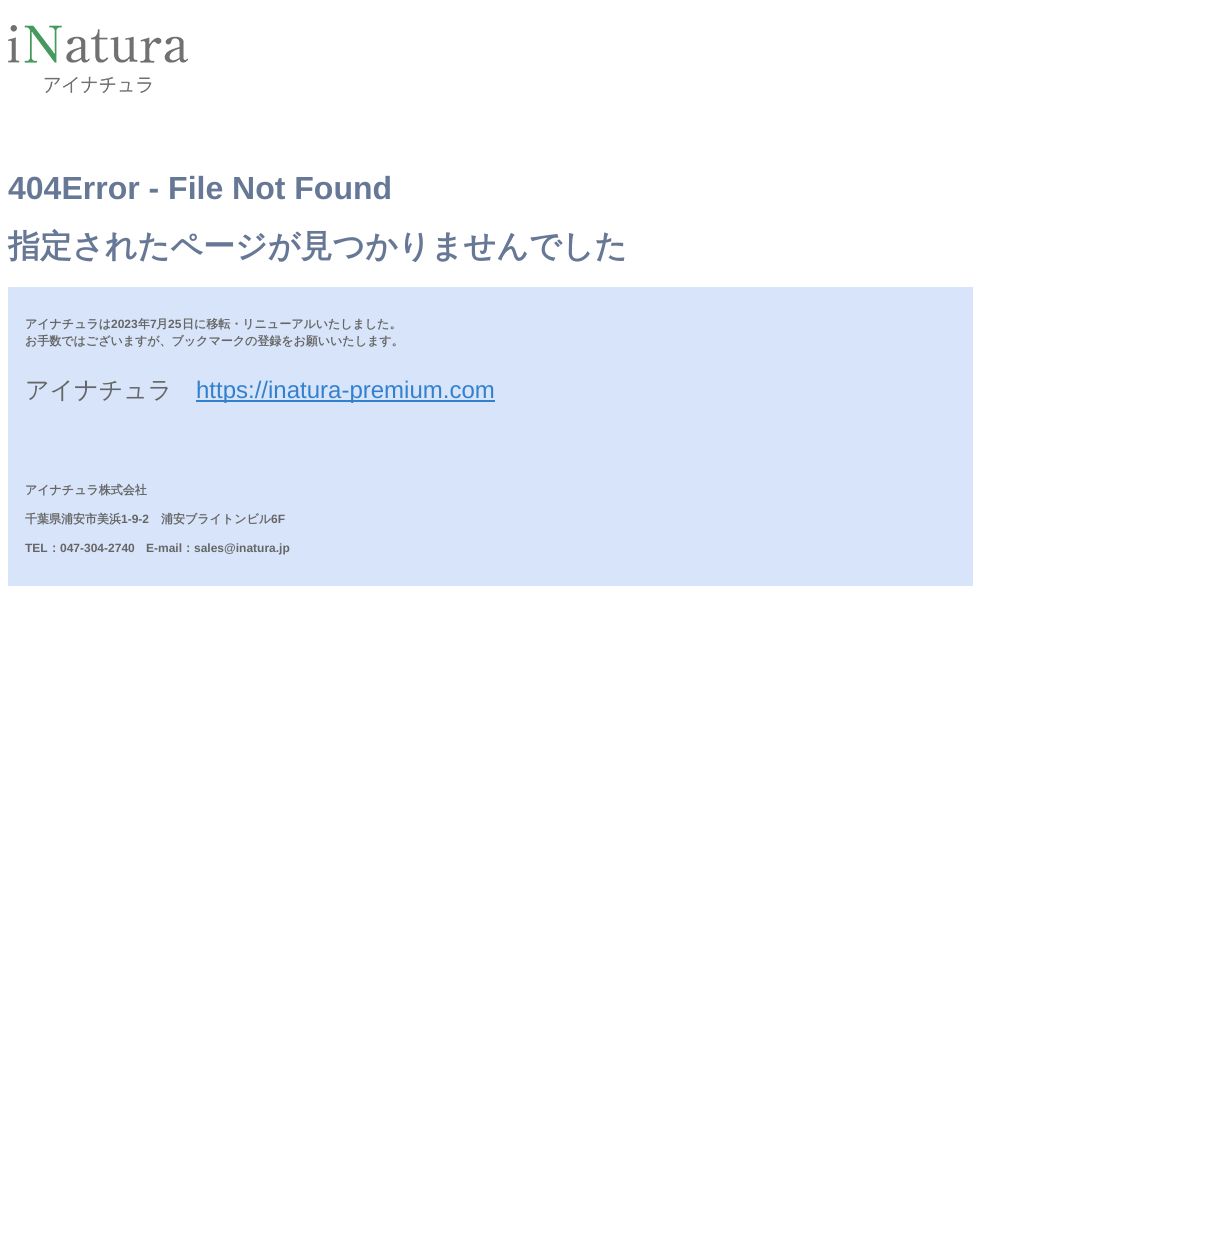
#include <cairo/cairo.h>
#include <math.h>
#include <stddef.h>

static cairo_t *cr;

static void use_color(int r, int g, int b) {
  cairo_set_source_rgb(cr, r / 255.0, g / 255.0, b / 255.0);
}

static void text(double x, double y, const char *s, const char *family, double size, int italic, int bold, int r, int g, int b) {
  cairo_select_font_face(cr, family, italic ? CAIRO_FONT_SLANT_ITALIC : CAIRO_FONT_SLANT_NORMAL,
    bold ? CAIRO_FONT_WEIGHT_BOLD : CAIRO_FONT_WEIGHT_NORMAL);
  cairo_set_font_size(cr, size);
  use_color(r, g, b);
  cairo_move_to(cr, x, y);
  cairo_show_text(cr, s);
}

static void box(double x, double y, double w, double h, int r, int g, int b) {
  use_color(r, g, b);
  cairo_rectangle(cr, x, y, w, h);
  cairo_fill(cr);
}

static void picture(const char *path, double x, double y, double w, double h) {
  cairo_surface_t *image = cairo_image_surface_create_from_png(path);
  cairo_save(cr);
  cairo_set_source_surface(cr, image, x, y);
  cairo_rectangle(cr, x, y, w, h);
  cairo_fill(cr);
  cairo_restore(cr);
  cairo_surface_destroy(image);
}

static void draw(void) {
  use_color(255, 255, 255);
  cairo_paint(cr);
  picture("img_01.png", 8, 25, 180, 68);
  box(8, 287, 965, 299, 215, 228, 249);
  box(196, 400, 299, 2, 51, 129, 206);
  text(8, 199, "404Error - File Not Found", "Liberation Sans", 32, 0, 1, 102, 120, 149);
  text(8, 257, "指定されたページが見つかりませんでした", "WenQuanYi Zen Hei", 32, 0, 1, 102, 120, 149);
  text(25, 328, "アイナチュラは", "WenQuanYi Zen Hei", 12, 0, 1, 102, 102, 102);
  text(111, 328, "2023", "Liberation Sans", 12, 0, 1, 102, 102, 102);
  text(138, 328, "年", "WenQuanYi Zen Hei", 12, 0, 1, 102, 102, 102);
  text(150, 328, "7", "Liberation Sans", 12, 0, 1, 102, 102, 102);
  text(156, 328, "月", "WenQuanYi Zen Hei", 12, 0, 1, 102, 102, 102);
  text(168, 328, "25", "Liberation Sans", 12, 0, 1, 102, 102, 102);
  text(182, 328, "日に移転・リニューアルいたしました。", "WenQuanYi Zen Hei", 12, 0, 1, 102, 102, 102);
  text(25, 345, "お手数ではございますが、ブックマークの登録をお願いいたします。", "WenQuanYi Zen Hei", 12, 0, 1, 102, 102, 102);
  text(25, 398, "アイナチュラ", "WenQuanYi Zen Hei Medium", 24, 0, 0, 102, 102, 102);
  text(196, 398, "https://inatura-premium.com", "Liberation Sans", 24, 0, 0, 51, 129, 206);
  text(25, 494, "アイナチュラ株式会社", "WenQuanYi Zen Hei", 12, 0, 1, 102, 102, 102);
  text(25, 523, "千葉県浦安市美浜", "WenQuanYi Zen Hei", 12, 0, 1, 102, 102, 102);
  text(121, 523, "1-9-2", "Liberation Sans", 12, 0, 1, 102, 102, 102);
  text(161, 523, "浦安ブライトンビル", "WenQuanYi Zen Hei", 12, 0, 1, 102, 102, 102);
  text(271, 523, "6F", "Liberation Sans", 12, 0, 1, 102, 102, 102);
  text(25, 552, "TEL", "Liberation Sans", 12, 0, 1, 102, 102, 102);
  text(48, 552, "：", "WenQuanYi Zen Hei", 12, 0, 1, 102, 102, 102);
  text(60, 552, "047-304-2740", "Liberation Sans", 12, 0, 1, 102, 102, 102);
  text(146, 552, "E-mail", "Liberation Sans", 12, 0, 1, 102, 102, 102);
  text(182, 552, "：", "WenQuanYi Zen Hei", 12, 0, 1, 102, 102, 102);
  text(194, 552, "sales@inatura.jp", "Liberation Sans", 12, 0, 1, 102, 102, 102);
}

int main(void) {
  cairo_surface_t *surface = cairo_image_surface_create(CAIRO_FORMAT_RGB24, 1222, 1234);
  cr = cairo_create(surface);
  cairo_font_options_t *options = cairo_font_options_create();
  cairo_font_options_set_hint_metrics(options, CAIRO_HINT_METRICS_OFF);
  cairo_font_options_set_hint_style(options, CAIRO_HINT_STYLE_NONE);
  cairo_set_font_options(cr, options);
  cairo_set_miter_limit(cr, 4);
  draw();
  cairo_surface_write_to_png(surface, "out.png");
  cairo_font_options_destroy(options);
  cairo_destroy(cr);
  cairo_surface_destroy(surface);
  return 0;
}
